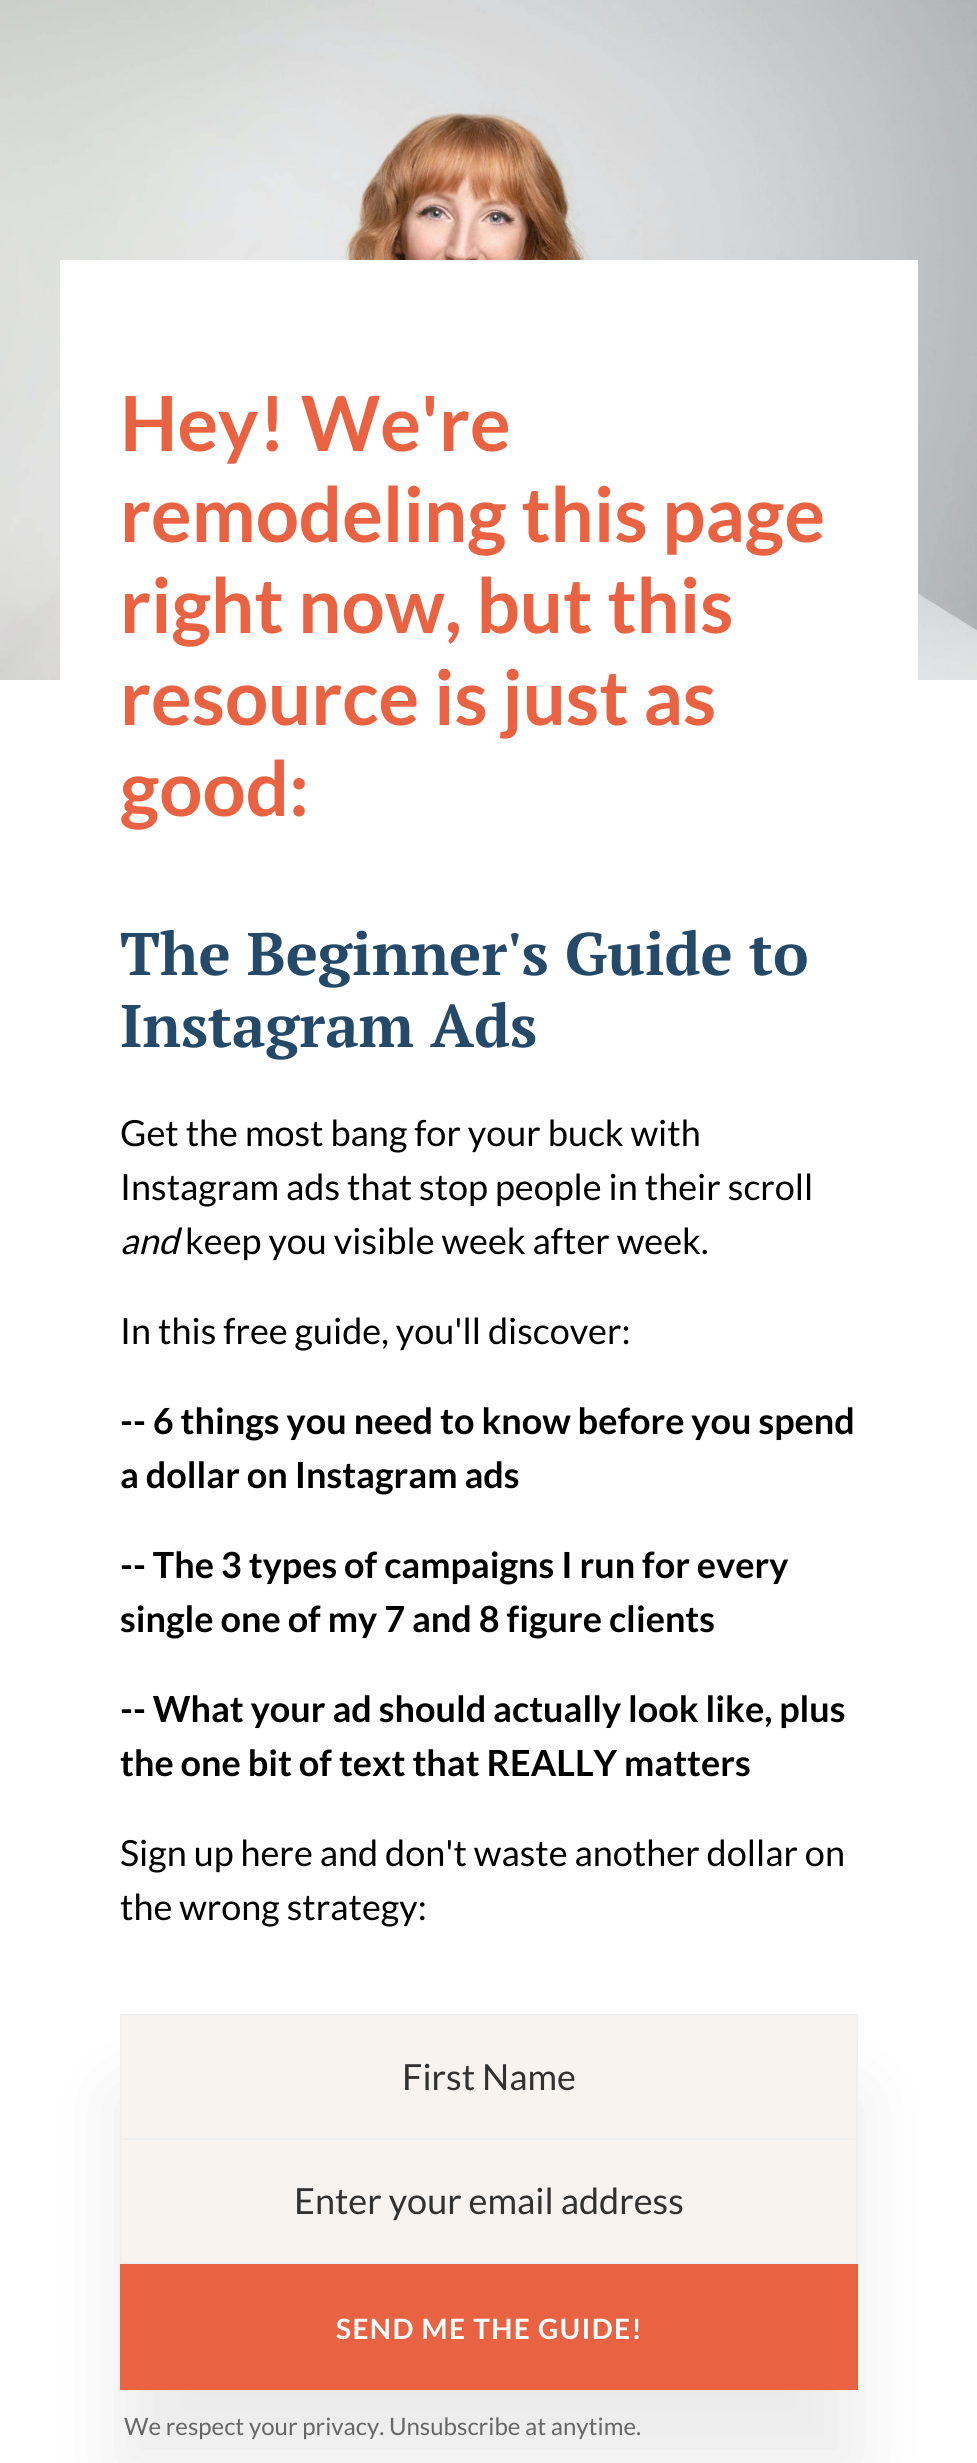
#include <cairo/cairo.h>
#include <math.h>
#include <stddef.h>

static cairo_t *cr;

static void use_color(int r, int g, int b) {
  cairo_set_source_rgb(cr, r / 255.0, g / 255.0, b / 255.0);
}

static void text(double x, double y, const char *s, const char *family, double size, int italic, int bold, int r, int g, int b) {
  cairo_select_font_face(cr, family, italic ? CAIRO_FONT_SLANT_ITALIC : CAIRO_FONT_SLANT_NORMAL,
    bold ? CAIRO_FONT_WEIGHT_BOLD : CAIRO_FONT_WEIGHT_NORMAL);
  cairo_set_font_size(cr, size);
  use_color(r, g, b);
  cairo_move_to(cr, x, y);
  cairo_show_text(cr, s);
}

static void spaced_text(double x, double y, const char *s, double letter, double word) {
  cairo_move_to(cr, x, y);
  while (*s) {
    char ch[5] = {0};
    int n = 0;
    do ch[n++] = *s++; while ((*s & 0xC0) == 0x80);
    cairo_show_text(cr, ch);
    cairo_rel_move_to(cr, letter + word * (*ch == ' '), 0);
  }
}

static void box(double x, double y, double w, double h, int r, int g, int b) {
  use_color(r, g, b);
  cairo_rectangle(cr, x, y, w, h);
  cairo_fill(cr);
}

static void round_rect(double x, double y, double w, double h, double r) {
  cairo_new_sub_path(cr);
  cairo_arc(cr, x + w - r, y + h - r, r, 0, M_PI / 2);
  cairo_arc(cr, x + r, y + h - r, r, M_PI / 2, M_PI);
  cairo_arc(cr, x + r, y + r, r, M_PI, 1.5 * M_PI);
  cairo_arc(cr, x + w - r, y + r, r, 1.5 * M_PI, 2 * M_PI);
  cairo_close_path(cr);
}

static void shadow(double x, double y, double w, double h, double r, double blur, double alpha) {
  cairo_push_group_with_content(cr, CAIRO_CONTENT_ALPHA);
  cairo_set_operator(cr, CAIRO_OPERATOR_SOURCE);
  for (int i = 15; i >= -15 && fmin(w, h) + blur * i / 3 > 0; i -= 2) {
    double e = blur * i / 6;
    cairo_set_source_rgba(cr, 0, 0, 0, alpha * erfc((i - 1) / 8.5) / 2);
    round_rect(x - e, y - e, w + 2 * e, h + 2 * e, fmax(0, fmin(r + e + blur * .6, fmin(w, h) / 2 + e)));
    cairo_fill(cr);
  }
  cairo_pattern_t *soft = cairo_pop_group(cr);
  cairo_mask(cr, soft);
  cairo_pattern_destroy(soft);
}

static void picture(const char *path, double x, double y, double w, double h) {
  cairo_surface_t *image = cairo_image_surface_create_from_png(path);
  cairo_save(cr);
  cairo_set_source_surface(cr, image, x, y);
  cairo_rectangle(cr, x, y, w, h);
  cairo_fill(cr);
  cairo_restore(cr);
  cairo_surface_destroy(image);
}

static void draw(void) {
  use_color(255, 255, 255);
  cairo_paint(cr);
  picture("img_01.png", 0, 0, 977, 680);
  box(60, 260, 858, 420, 255, 255, 255);
  use_color(0, 0, 0);
  shadow(120, 2094, 738, 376, 0, 40, 0.08);
  box(122, 2016, 734, 122, 249, 243, 240);
  box(120, 2014, 738, 2, 239, 239, 239);
  box(856, 2014, 2, 124, 239, 239, 239);
  box(120, 2014, 2, 124, 239, 239, 239);
  use_color(249, 243, 240);
  cairo_rectangle(cr, 121, 2139, 736, 124);
  cairo_fill_preserve(cr);
  use_color(239, 239, 239);
  cairo_stroke(cr);
  box(120, 2264, 738, 126, 233, 98, 66);
  text(120, 451, "Hey! We're", "Lato", 76, 0, 1, 233, 98, 66);
  text(120, 542, "remodeling this page", "Lato", 76, 0, 1, 233, 98, 66);
  text(120, 633, "right now, but this", "Lato", 76, 0, 1, 233, 98, 66);
  text(120, 725, "resource is just as", "Lato", 76, 0, 1, 233, 98, 66);
  text(120, 816, "good:", "Lato", 76, 0, 1, 233, 98, 66);
  text(120, 975, "The Beginner's Guide to", "PT Serif", 60, 0, 1, 37, 73, 105);
  text(120, 1047, "Instagram Ads", "PT Serif", 60, 0, 1, 37, 73, 105);
  text(120, 1146, "Get the most bang for your buck with", "Lato", 36, 0, 0, 0, 0, 0);
  text(120, 1200, "Instagram ads that stop people in their scroll", "Lato", 36, 0, 0, 0, 0, 0);
  text(120, 1254, "and", "Lato", 36, 1, 0, 0, 0, 0);
  text(185, 1254, "keep you visible week after week.", "Lato", 36, 0, 0, 0, 0, 0);
  text(120, 1344, "In this free guide, you'll discover:", "Lato", 36, 0, 0, 0, 0, 0);
  text(120, 1434, "-- 6 things you need to know before you spend", "Lato", 36, 0, 1, 0, 0, 0);
  text(120, 1488, "a dollar on Instagram ads", "Lato", 36, 0, 1, 0, 0, 0);
  text(120, 1578, "-- The 3 types of campaigns I run for every", "Lato", 36, 0, 1, 0, 0, 0);
  text(120, 1632, "single one of my 7 and 8 figure clients", "Lato", 36, 0, 1, 0, 0, 0);
  text(120, 1722, "-- What your ad should actually look like, plus", "Lato", 36, 0, 1, 0, 0, 0);
  text(120, 1776, "the one bit of text that REALLY matters", "Lato", 36, 0, 1, 0, 0, 0);
  text(120, 1866, "Sign up here and don't waste another dollar on", "Lato", 36, 0, 0, 0, 0, 0);
  text(120, 1920, "the wrong strategy:", "Lato", 36, 0, 0, 0, 0, 0);
  text(402, 2090, "First Name", "Lato", 36, 0, 0, 50, 49, 48);
  text(294, 2214, "Enter your email address", "Lato", 36, 0, 0, 50, 49, 48);
  cairo_select_font_face(cr, "Lato", CAIRO_FONT_SLANT_NORMAL, CAIRO_FONT_WEIGHT_BOLD);
  cairo_set_font_size(cr, 28);
  use_color(255, 255, 255);
  spaced_text(336, 2339, "SEND ME THE GUIDE!", 1.4, 0);
  text(124, 2435, "We respect your privacy. Unsubscribe at anytime.", "Lato", 24, 0, 0, 102, 102, 102);
}

int main(void) {
  cairo_surface_t *surface = cairo_image_surface_create(CAIRO_FORMAT_RGB24, 977, 2463);
  cr = cairo_create(surface);
  cairo_font_options_t *options = cairo_font_options_create();
  cairo_font_options_set_hint_metrics(options, CAIRO_HINT_METRICS_OFF);
  cairo_font_options_set_hint_style(options, CAIRO_HINT_STYLE_NONE);
  cairo_set_font_options(cr, options);
  cairo_set_miter_limit(cr, 4);
  draw();
  cairo_surface_write_to_png(surface, "out.png");
  cairo_font_options_destroy(options);
  cairo_destroy(cr);
  cairo_surface_destroy(surface);
  return 0;
}
